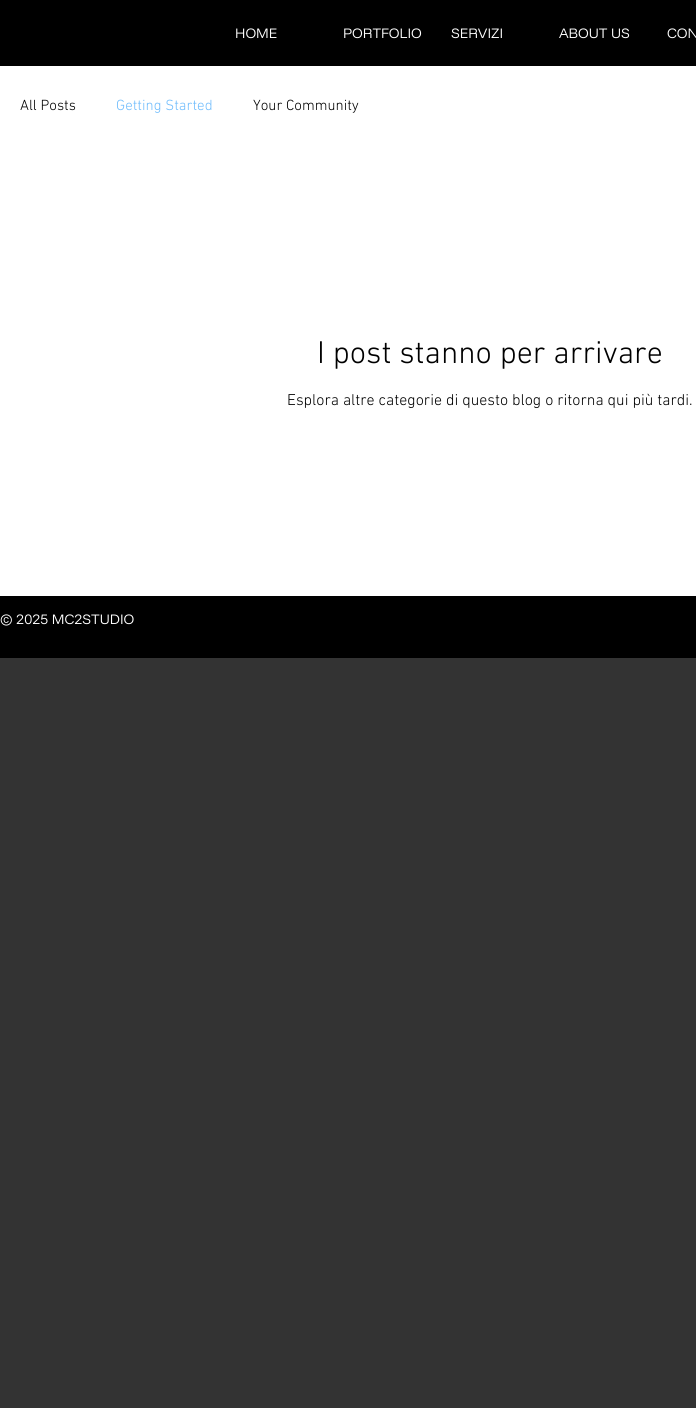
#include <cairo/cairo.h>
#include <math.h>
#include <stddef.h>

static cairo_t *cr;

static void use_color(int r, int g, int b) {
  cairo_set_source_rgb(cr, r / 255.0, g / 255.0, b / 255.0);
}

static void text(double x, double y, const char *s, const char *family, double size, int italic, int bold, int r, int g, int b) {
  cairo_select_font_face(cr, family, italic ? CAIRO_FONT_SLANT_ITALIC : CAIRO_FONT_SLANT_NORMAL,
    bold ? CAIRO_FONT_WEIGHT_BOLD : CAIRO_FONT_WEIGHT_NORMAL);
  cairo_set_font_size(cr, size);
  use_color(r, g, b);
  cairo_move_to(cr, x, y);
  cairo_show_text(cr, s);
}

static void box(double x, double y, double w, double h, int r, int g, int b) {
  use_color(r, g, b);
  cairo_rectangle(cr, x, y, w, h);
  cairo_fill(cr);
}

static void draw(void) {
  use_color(51, 51, 51);
  cairo_paint(cr);
  box(0, 0, 696, 66, 0, 0, 0);
  box(0, 66, 696, 530, 255, 255, 255);
  box(0, 596, 696, 62, 0, 0, 0);
  text(235, 38, "HOME", "Funnel Display Light", 14, 0, 0, 255, 255, 255);
  text(343, 38, "PORTFOLIO", "Funnel Display Light", 14, 0, 0, 255, 255, 255);
  text(451, 38, "SERVIZI", "Funnel Display Light", 14, 0, 0, 255, 255, 255);
  text(559, 38, "ABOUT US", "Funnel Display Light", 14, 0, 0, 255, 255, 255);
  text(667, 38, "CON", "Funnel Display Light", 14, 0, 0, 255, 255, 255);
  text(20, 110, "All Posts", "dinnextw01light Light", 15, 0, 0, 0, 0, 0);
  text(116, 110, "Getting Started", "dinnextw01light Light", 15, 0, 0, 111, 188, 252);
  text(253, 110, "Your Community", "dinnextw01light Light", 15, 0, 0, 0, 0, 0);
  text(317, 363, "I post stanno per arrivare", "dinnextw01light Light", 32, 0, 0, 0, 0, 0);
  text(287, 405, "Esplora altre categorie di questo blog o ritorna qui più tardi.", "dinnextw01light Light", 16, 0, 0, 0, 0, 0);
  text(0, 624, "© 2025 MC2STUDIO", "Funnel Display Light", 14, 0, 0, 255, 255, 255);
}

int main(void) {
  cairo_surface_t *surface = cairo_image_surface_create(CAIRO_FORMAT_RGB24, 696, 1408);
  cr = cairo_create(surface);
  cairo_font_options_t *options = cairo_font_options_create();
  cairo_font_options_set_hint_metrics(options, CAIRO_HINT_METRICS_OFF);
  cairo_font_options_set_hint_style(options, CAIRO_HINT_STYLE_NONE);
  cairo_set_font_options(cr, options);
  cairo_set_miter_limit(cr, 4);
  draw();
  cairo_surface_write_to_png(surface, "out.png");
  cairo_font_options_destroy(options);
  cairo_destroy(cr);
  cairo_surface_destroy(surface);
  return 0;
}
